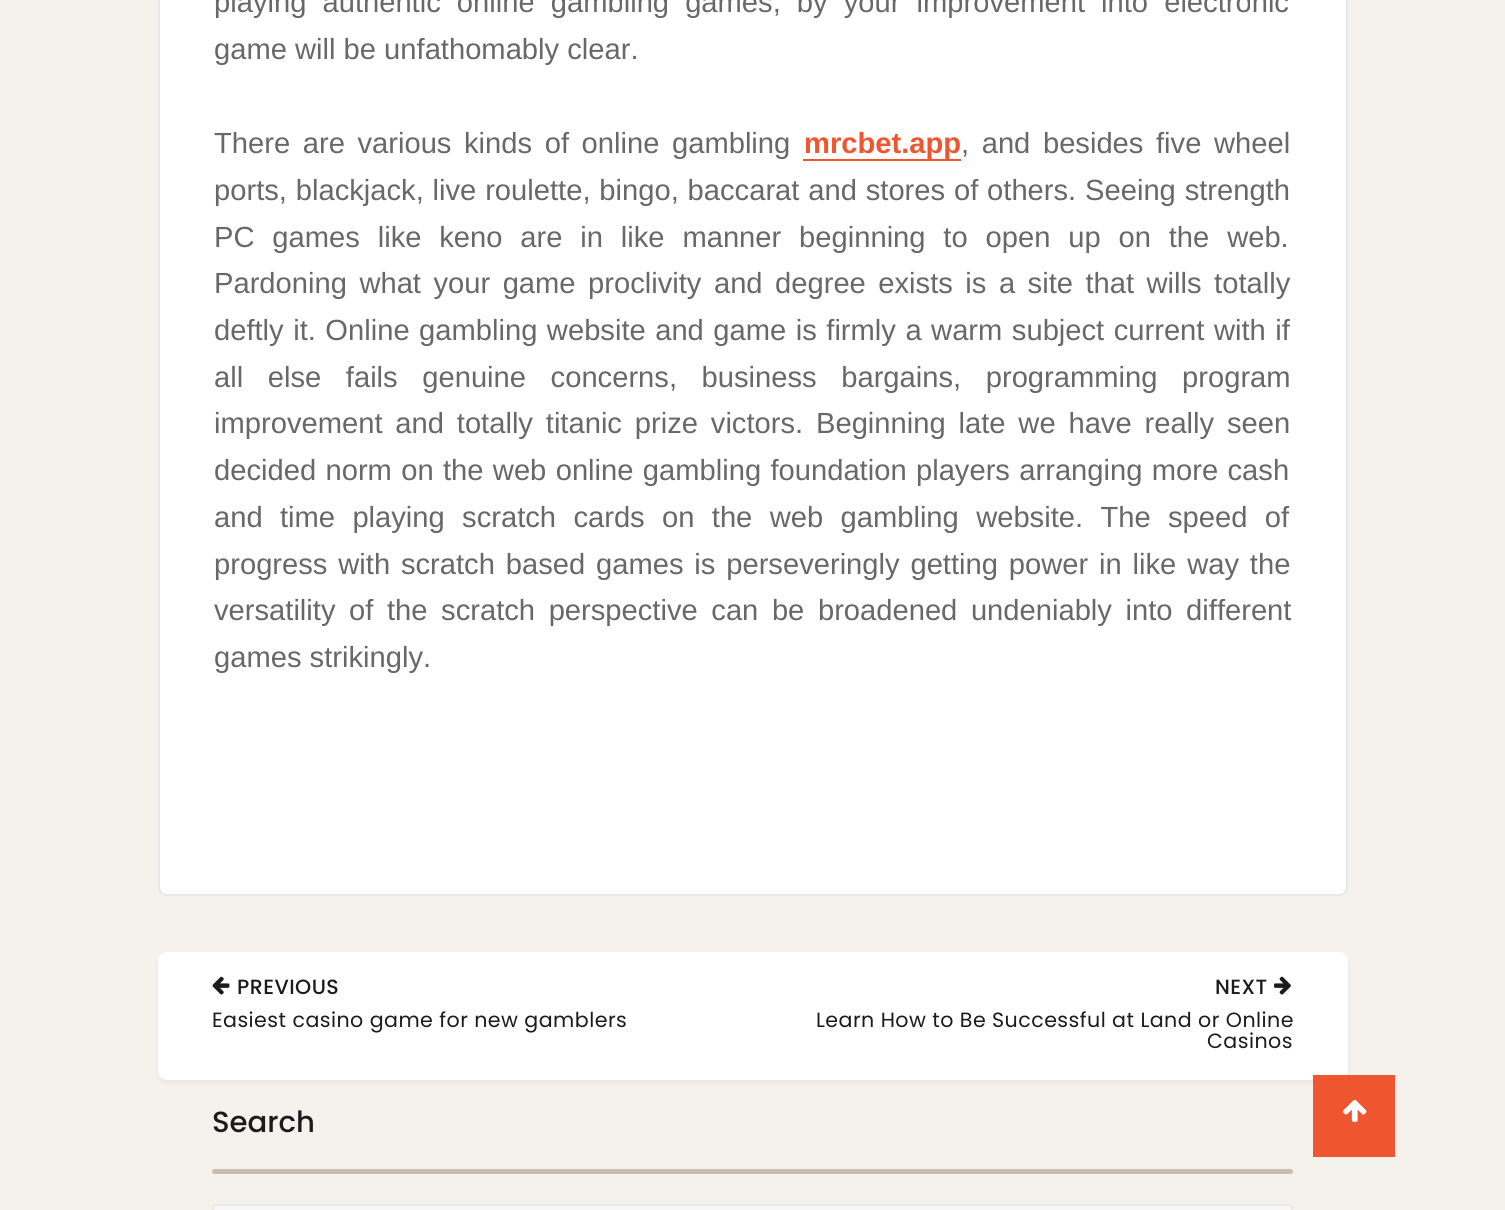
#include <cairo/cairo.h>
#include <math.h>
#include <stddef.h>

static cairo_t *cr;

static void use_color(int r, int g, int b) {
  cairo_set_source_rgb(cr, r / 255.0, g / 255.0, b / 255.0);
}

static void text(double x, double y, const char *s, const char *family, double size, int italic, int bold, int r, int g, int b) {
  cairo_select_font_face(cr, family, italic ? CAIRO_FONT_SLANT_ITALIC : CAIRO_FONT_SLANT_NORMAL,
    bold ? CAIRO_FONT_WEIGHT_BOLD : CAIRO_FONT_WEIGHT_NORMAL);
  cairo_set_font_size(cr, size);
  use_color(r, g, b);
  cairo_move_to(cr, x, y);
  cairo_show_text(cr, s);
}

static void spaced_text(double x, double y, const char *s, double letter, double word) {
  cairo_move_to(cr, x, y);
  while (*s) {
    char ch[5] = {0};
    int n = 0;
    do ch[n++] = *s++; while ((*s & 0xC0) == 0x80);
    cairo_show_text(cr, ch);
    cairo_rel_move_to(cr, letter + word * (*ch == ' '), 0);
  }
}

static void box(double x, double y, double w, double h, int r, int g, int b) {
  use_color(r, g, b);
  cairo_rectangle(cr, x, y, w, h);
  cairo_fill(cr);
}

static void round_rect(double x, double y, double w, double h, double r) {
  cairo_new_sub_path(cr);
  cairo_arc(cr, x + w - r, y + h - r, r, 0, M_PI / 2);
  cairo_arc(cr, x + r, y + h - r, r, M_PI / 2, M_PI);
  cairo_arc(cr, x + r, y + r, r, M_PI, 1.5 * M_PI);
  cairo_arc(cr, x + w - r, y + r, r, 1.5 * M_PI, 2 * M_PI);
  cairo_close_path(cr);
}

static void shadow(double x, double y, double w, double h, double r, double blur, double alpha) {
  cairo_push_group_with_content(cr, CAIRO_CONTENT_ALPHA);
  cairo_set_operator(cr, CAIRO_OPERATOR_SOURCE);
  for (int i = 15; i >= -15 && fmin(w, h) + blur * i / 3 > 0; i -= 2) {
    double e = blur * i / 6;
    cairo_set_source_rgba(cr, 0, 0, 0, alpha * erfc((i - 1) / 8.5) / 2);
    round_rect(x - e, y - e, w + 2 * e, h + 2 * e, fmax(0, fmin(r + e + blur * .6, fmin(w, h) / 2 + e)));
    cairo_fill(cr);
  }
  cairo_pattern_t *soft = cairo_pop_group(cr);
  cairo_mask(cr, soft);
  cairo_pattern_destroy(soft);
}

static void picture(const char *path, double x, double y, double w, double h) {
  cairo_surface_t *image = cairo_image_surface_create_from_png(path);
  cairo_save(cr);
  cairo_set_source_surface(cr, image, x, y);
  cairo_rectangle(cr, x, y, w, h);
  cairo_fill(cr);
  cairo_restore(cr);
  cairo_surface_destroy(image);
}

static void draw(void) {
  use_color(245, 242, 237);
  cairo_paint(cr);
  use_color(255, 255, 255);
  round_rect(159, -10, 1188, 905, 8);
  cairo_fill_preserve(cr);
  use_color(232, 232, 232);
  cairo_stroke(cr);
  box(803, 159, 158, 2, 239, 86, 47);
  use_color(0, 0, 0);
  shadow(158, 956, 1190, 127, 9, 2, 0.05);
  use_color(255, 255, 255);
  round_rect(158, 952, 1190, 128, 9);
  cairo_fill(cr);
  picture("img_01.png", 212, 976, 18, 19);
  picture("img_02.png", 1274, 976, 17, 19);
  use_color(201, 190, 175);
  round_rect(212, 1169, 1081, 5, 2.5);
  cairo_fill(cr);
  use_color(247, 247, 247);
  round_rect(212, 1204, 1081, 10, 4);
  cairo_fill(cr);
  round_rect(213, 1205, 1079, 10, 3);
  cairo_set_source_rgba(cr, 0.8, 0.8, 0.8, 0.3);
  cairo_stroke(cr);
  box(1313, 1075, 82, 82, 239, 86, 47);
  picture("img_03.png", 1343, 1099, 24, 23);
  cairo_select_font_face(cr, "Liberation Sans", CAIRO_FONT_SLANT_NORMAL, CAIRO_FONT_WEIGHT_NORMAL);
  cairo_set_font_size(cr, 29.15);
  use_color(104, 104, 104);
  spaced_text(214, 12, "playing authentic online gambling games, by your improvement into electronic", 0, 8);
  text(214, 59, "game will be unfathomably clear.", "Liberation Sans", 29.15, 0, 0, 104, 104, 104);
  spaced_text(214, 153, "There are various kinds of online gambling", 0, 4.5);
  text(804, 153, "mrcbet.app", "Liberation Sans", 29.15, 0, 1, 239, 86, 47);
  cairo_select_font_face(cr, "Liberation Sans", CAIRO_FONT_SLANT_NORMAL, CAIRO_FONT_WEIGHT_NORMAL);
  use_color(104, 104, 104);
  spaced_text(961, 153, ", and besides five wheel", 0, 4.5);
  spaced_text(214, 200, "ports, blackjack, live roulette, bingo, baccarat and stores of others. Seeing strength", 0, 0.75);
  spaced_text(214, 247, "PC games like keno are in like manner beginning to open up on the web.", 0, 9.75);
  spaced_text(214, 293, "Pardoning what your game proclivity and degree exists is a site that wills totally", 0, 4.4);
  spaced_text(214, 340, "deftly it. Online gambling website and game is firmly a warm subject current with if", 0, 1.4);
  spaced_text(214, 387, "all else fails genuine concerns, business bargains, programming program", 0, 16.5);
  spaced_text(214, 433, "improvement and totally titanic prize victors. Beginning late we have really seen", 0, 4.75);
  spaced_text(214, 480, "decided norm on the web online gambling foundation players arranging more cash", 0, 1.25);
  spaced_text(214, 527, "and time playing scratch cards on the web gambling website. The speed of", 0, 9.25);
  spaced_text(214, 574, "progress with scratch based games is perseveringly getting power in like way the", 0, 2.75);
  spaced_text(214, 620, "versatility of the scratch perspective can be broadened undeniably into different", 0, 5.5);
  text(214, 667, "games strikingly.", "Liberation Sans", 29.15, 0, 0, 104, 104, 104);
  cairo_select_font_face(cr, "Poppins Medium", CAIRO_FONT_SLANT_NORMAL, CAIRO_FONT_WEIGHT_NORMAL);
  cairo_set_font_size(cr, 20.6);
  use_color(27, 27, 27);
  spaced_text(237, 994, "PREVIOUS", 0.45, 0);
  cairo_select_font_face(cr, "Poppins", CAIRO_FONT_SLANT_NORMAL, CAIRO_FONT_WEIGHT_NORMAL);
  spaced_text(212, 1027, "Easiest casino game for new gamblers", 0.45, 0);
  cairo_select_font_face(cr, "Poppins Medium", CAIRO_FONT_SLANT_NORMAL, CAIRO_FONT_WEIGHT_NORMAL);
  spaced_text(1215, 994, "NEXT", 0.45, 0);
  cairo_select_font_face(cr, "Poppins", CAIRO_FONT_SLANT_NORMAL, CAIRO_FONT_WEIGHT_NORMAL);
  spaced_text(816, 1027, "Learn How to Be Successful at Land or Online", 0.45, 0);
  spaced_text(1207, 1048, "Casinos", 0.45, 0);
  text(212, 1132, "Search", "Poppins Medium", 29.15, 0, 0, 27, 27, 27);
}

int main(void) {
  cairo_surface_t *surface = cairo_image_surface_create(CAIRO_FORMAT_RGB24, 1505, 1210);
  cr = cairo_create(surface);
  cairo_font_options_t *options = cairo_font_options_create();
  cairo_font_options_set_hint_metrics(options, CAIRO_HINT_METRICS_OFF);
  cairo_font_options_set_hint_style(options, CAIRO_HINT_STYLE_NONE);
  cairo_set_font_options(cr, options);
  cairo_set_miter_limit(cr, 4);
  draw();
  cairo_surface_write_to_png(surface, "out.png");
  cairo_font_options_destroy(options);
  cairo_destroy(cr);
  cairo_surface_destroy(surface);
  return 0;
}
